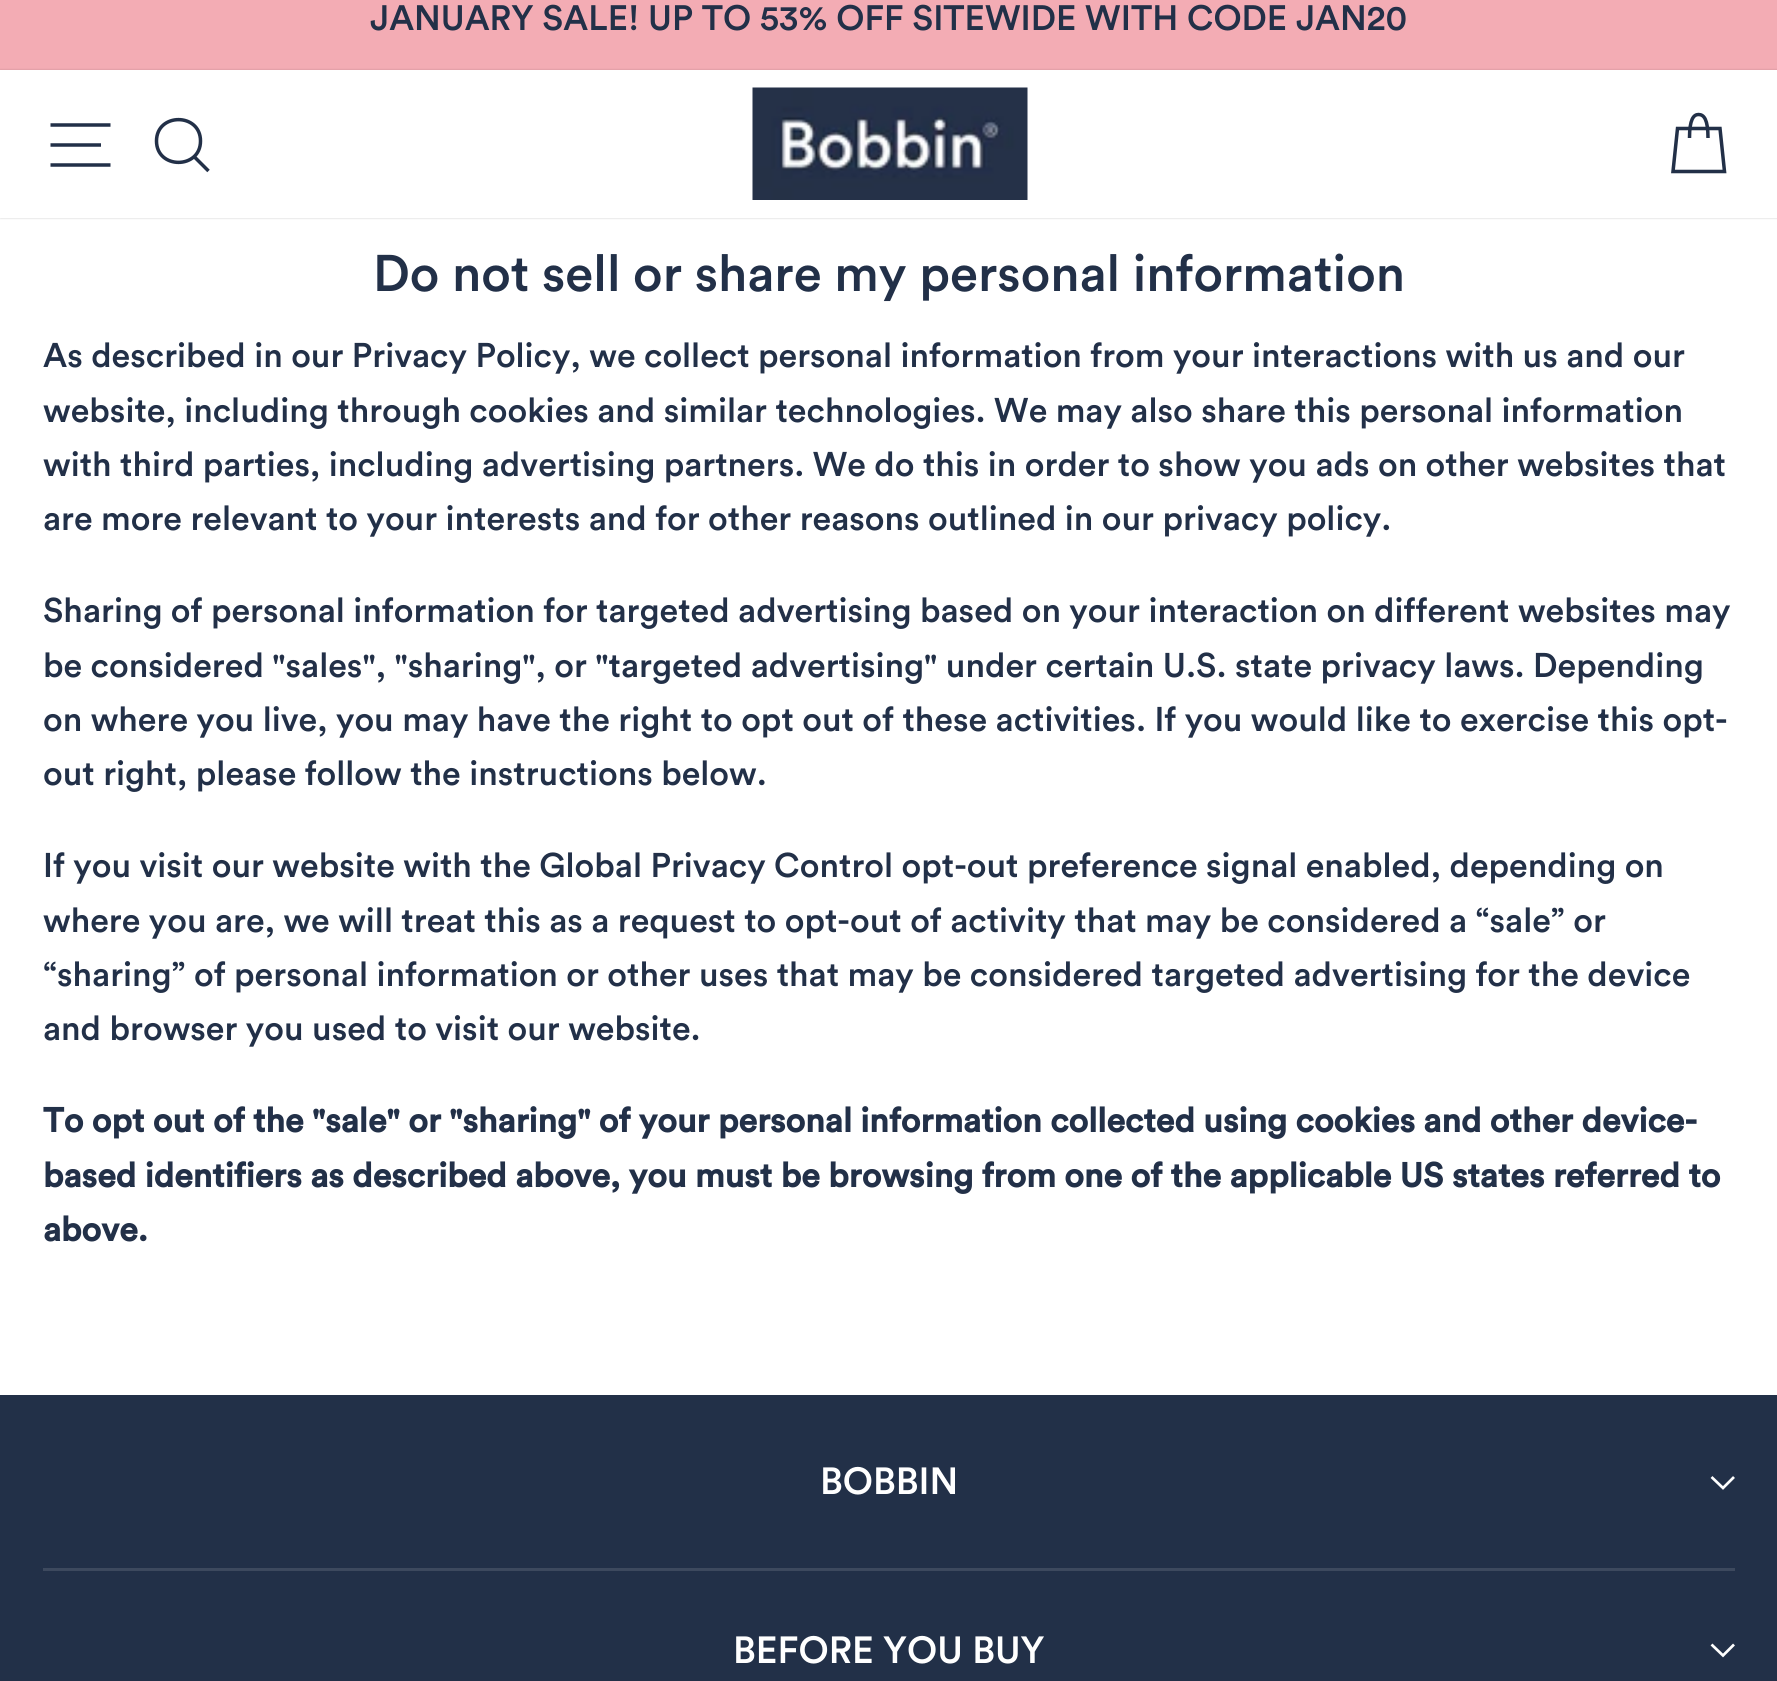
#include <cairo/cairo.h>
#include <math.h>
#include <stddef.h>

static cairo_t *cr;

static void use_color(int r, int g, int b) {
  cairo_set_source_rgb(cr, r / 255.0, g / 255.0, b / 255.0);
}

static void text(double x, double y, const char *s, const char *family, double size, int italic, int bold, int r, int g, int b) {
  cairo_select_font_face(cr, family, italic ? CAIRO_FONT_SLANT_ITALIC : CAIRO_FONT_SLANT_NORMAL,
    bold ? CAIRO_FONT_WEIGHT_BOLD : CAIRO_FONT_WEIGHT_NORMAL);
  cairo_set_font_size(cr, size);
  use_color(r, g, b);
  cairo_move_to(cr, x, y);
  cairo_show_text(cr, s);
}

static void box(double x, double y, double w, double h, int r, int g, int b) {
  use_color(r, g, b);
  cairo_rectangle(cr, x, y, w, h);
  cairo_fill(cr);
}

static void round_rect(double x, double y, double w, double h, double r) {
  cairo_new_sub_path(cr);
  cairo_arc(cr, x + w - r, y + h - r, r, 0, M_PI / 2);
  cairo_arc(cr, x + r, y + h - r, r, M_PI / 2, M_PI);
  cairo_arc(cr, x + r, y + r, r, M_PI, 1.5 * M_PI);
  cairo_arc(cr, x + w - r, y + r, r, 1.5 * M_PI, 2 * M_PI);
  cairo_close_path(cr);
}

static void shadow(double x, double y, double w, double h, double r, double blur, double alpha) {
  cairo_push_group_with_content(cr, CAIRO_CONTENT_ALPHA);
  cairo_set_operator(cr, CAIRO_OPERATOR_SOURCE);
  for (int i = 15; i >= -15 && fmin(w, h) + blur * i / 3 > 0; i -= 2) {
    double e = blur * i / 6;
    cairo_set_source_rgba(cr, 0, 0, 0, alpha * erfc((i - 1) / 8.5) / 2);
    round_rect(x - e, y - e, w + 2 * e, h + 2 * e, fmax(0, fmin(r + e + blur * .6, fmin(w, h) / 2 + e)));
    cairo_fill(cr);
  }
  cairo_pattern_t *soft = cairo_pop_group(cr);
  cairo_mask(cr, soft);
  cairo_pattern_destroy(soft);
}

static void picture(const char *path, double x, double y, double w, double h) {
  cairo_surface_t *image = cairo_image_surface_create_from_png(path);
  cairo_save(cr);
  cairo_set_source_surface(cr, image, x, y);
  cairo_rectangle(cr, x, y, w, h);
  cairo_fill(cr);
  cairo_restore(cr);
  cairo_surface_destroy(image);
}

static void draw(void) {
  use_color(255, 255, 255);
  cairo_paint(cr);
  box(0, 0, 1777, 70, 243, 172, 180);
  use_color(0, 0, 0);
  shadow(0, 70, 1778, 148, 0, 1, 0.2);
  box(0, 70, 1777, 148, 255, 255, 255);
  cairo_new_path(cr);
  cairo_move_to(cr, 50.5, 125);
  cairo_line_to(cr, 110.5, 125);
  cairo_move_to(cr, 50.5, 145);
  cairo_line_to(cr, 101, 145);
  cairo_move_to(cr, 50.5, 165);
  cairo_line_to(cr, 110.5, 165);
  use_color(34, 48, 72);
  cairo_set_line_width(cr, 3.5);
  cairo_stroke(cr);
  cairo_new_path(cr);
  cairo_move_to(cr, 200.5, 141);
  cairo_curve_to(cr, 200.5, 169.5, 156.5, 169.5, 156.5, 141);
  cairo_curve_to(cr, 156.5, 112.5, 200.5, 112.5, 200.5, 141);
  cairo_close_path(cr);
  cairo_move_to(cr, 208.5, 171);
  cairo_line_to(cr, 194, 156.5);
  cairo_stroke(cr);
  picture("img_01.png", 752, 87, 276, 113);
  cairo_new_path(cr);
  cairo_move_to(cr, 1689.5, 138);
  cairo_curve_to(cr, 1689.5, 119.5, 1693.5, 114.5, 1698.5, 114.5);
  cairo_curve_to(cr, 1704, 114.5, 1708, 119.5, 1708, 138);
  cairo_move_to(cr, 1677.5, 128.5);
  cairo_line_to(cr, 1720, 128.5);
  cairo_line_to(cr, 1724.5, 171.5);
  cairo_line_to(cr, 1673, 171.5);
  cairo_close_path(cr);
  cairo_stroke(cr);
  box(0, 1395, 1777, 286, 34, 48, 72);
  cairo_new_path(cr);
  cairo_move_to(cr, 1711.5, 1477);
  cairo_line_to(cr, 1723, 1488);
  cairo_line_to(cr, 1734, 1477);
  use_color(255, 255, 255);
  cairo_set_line_width(cr, 2.7);
  cairo_stroke(cr);
  box(43, 1568, 1692, 3, 61, 73, 94);
  cairo_new_path(cr);
  cairo_move_to(cr, 1711.5, 1644.5);
  cairo_line_to(cr, 1723, 1655.5);
  cairo_line_to(cr, 1734, 1644.5);
  use_color(255, 255, 255);
  cairo_stroke(cr);
  text(370, 30, "JANUARY SALE! UP TO 53% OFF SITEWIDE WITH CODE JAN20", "Circular Medium", 35, 0, 0, 34, 48, 72);
  text(373, 291, "Do not sell or share my personal information", "Circular Medium", 51, 0, 0, 34, 48, 72);
  text(43, 367, "As described in our Privacy Policy, we collect personal information from your interactions with us and our", "Circular Medium", 34, 0, 0, 34, 48, 72);
  text(43, 422, "website, including through cookies and similar technologies. We may also share this personal information", "Circular Medium", 34, 0, 0, 34, 48, 72);
  text(43, 476, "with third parties, including advertising partners. We do this in order to show you ads on other websites that", "Circular Medium", 34, 0, 0, 34, 48, 72);
  text(43, 530, "are more relevant to your interests and for other reasons outlined in our privacy policy.", "Circular Medium", 34, 0, 0, 34, 48, 72);
  text(43, 622, "Sharing of personal information for targeted advertising based on your interaction on different websites may", "Circular Medium", 34, 0, 0, 34, 48, 72);
  text(43, 677, "be considered \"sales\", \"sharing\", or \"targeted advertising\" under certain U.S. state privacy laws. Depending", "Circular Medium", 34, 0, 0, 34, 48, 72);
  text(43, 731, "on where you live, you may have the right to opt out of these activities. If you would like to exercise this opt-", "Circular Medium", 34, 0, 0, 34, 48, 72);
  text(43, 785, "out right, please follow the instructions below.", "Circular Medium", 34, 0, 0, 34, 48, 72);
  text(43, 877, "If you visit our website with the Global Privacy Control opt-out preference signal enabled, depending on", "Circular Medium", 34, 0, 0, 34, 48, 72);
  text(43, 932, "where you are, we will treat this as a request to opt-out of activity that may be considered a “sale” or", "Circular Medium", 34, 0, 0, 34, 48, 72);
  text(43, 986, "“sharing” of personal information or other uses that may be considered targeted advertising for the device", "Circular Medium", 34, 0, 0, 34, 48, 72);
  text(43, 1040, "and browser you used to visit our website.", "Circular Medium", 34, 0, 0, 34, 48, 72);
  text(43, 1132, "To opt out of the \"sale\" or \"sharing\" of your personal information collected using cookies and other device-", "Circular", 34, 0, 1, 34, 48, 72);
  text(43, 1187, "based identifiers as described above, you must be browsing from one of the applicable US states referred to", "Circular", 34, 0, 1, 34, 48, 72);
  text(43, 1241, "above.", "Circular", 34, 0, 1, 34, 48, 72);
  text(820, 1494, "BOBBIN", "Circular Medium", 37.5, 0, 0, 255, 255, 255);
  text(733, 1663, "BEFORE YOU BUY", "Circular Medium", 37.5, 0, 0, 255, 255, 255);
}

int main(void) {
  cairo_surface_t *surface = cairo_image_surface_create(CAIRO_FORMAT_RGB24, 1777, 1681);
  cr = cairo_create(surface);
  cairo_font_options_t *options = cairo_font_options_create();
  cairo_font_options_set_hint_metrics(options, CAIRO_HINT_METRICS_OFF);
  cairo_font_options_set_hint_style(options, CAIRO_HINT_STYLE_NONE);
  cairo_set_font_options(cr, options);
  cairo_set_miter_limit(cr, 4);
  draw();
  cairo_surface_write_to_png(surface, "out.png");
  cairo_font_options_destroy(options);
  cairo_destroy(cr);
  cairo_surface_destroy(surface);
  return 0;
}
